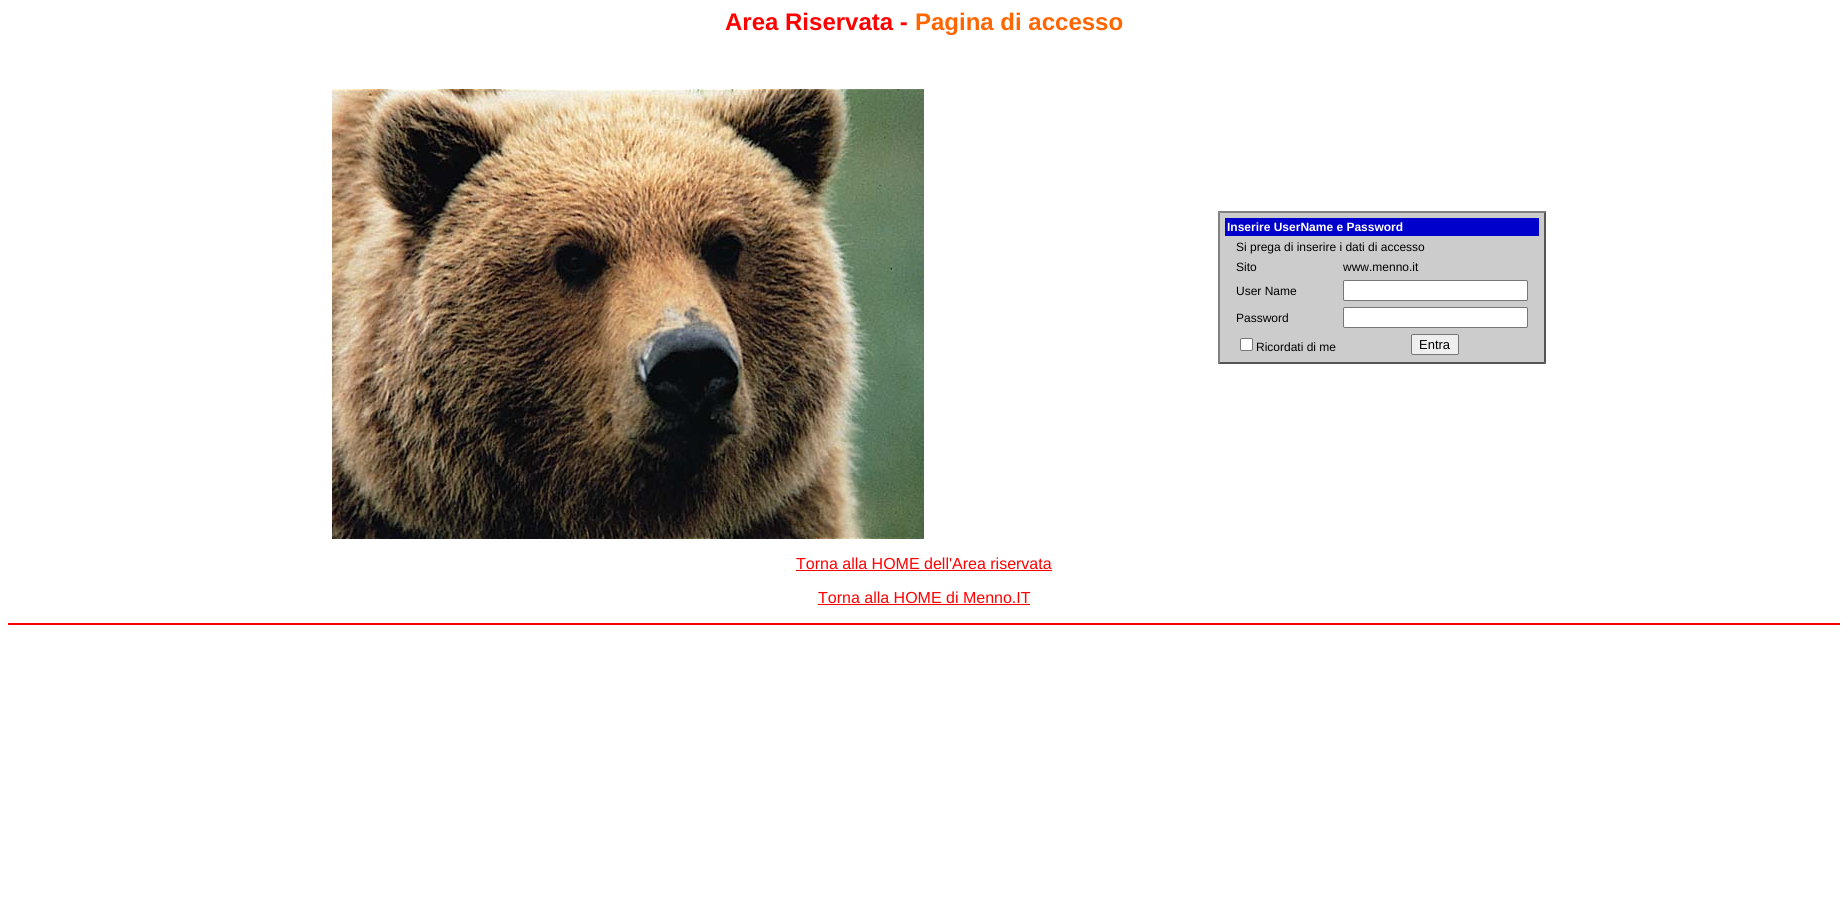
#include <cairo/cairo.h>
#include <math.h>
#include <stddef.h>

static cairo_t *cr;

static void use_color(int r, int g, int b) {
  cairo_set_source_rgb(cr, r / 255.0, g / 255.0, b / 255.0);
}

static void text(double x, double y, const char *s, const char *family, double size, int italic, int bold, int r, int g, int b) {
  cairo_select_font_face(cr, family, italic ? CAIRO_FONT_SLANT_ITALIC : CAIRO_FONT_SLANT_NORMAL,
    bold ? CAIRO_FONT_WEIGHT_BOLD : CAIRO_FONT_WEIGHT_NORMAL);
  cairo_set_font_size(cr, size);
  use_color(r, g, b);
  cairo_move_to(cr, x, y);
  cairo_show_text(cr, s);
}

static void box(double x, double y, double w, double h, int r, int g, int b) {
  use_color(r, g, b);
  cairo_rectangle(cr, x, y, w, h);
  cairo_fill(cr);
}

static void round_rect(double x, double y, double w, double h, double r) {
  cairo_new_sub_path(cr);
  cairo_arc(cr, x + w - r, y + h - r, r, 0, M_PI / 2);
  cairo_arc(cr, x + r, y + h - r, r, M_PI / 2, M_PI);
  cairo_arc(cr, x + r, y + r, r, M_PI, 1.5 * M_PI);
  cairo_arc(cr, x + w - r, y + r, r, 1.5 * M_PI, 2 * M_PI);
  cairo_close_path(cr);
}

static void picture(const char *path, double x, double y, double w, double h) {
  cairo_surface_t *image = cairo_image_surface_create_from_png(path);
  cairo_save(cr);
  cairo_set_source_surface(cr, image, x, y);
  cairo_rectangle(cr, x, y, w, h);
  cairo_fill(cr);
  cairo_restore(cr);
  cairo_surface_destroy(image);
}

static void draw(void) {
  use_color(255, 255, 255);
  cairo_paint(cr);
  picture("img_01.png", 332, 89, 592, 450);
  box(1218, 211, 328, 153, 204, 204, 204);
  use_color(128, 128, 128);
  cairo_new_path(cr);
  cairo_move_to(cr, 1218, 211);
  cairo_line_to(cr, 1546, 211);
  cairo_line_to(cr, 1544, 213);
  cairo_line_to(cr, 1220, 213);
  cairo_close_path(cr);
  cairo_fill(cr);
  use_color(85, 85, 85);
  cairo_new_path(cr);
  cairo_move_to(cr, 1546, 211);
  cairo_line_to(cr, 1546, 364);
  cairo_line_to(cr, 1544, 362);
  cairo_line_to(cr, 1544, 213);
  cairo_close_path(cr);
  cairo_fill(cr);
  cairo_new_path(cr);
  cairo_move_to(cr, 1546, 364);
  cairo_line_to(cr, 1218, 364);
  cairo_line_to(cr, 1220, 362);
  cairo_line_to(cr, 1544, 362);
  cairo_close_path(cr);
  cairo_fill(cr);
  use_color(128, 128, 128);
  cairo_new_path(cr);
  cairo_move_to(cr, 1218, 364);
  cairo_line_to(cr, 1218, 211);
  cairo_line_to(cr, 1220, 213);
  cairo_line_to(cr, 1220, 362);
  cairo_close_path(cr);
  cairo_fill(cr);
  box(1225, 218, 314, 18, 0, 0, 204);
  use_color(255, 255, 255);
  round_rect(1343.5, 280.5, 184, 20, 1.5);
  cairo_fill_preserve(cr);
  use_color(118, 118, 118);
  cairo_set_line_width(cr, 1);
  cairo_stroke(cr);
  use_color(255, 255, 255);
  round_rect(1343.5, 307.5, 184, 20, 1.5);
  cairo_fill_preserve(cr);
  use_color(118, 118, 118);
  cairo_stroke(cr);
  use_color(255, 255, 255);
  round_rect(1240.5, 338.5, 12, 12, 1.5);
  cairo_fill_preserve(cr);
  use_color(118, 118, 118);
  cairo_stroke(cr);
  use_color(239, 239, 239);
  round_rect(1411.5, 334.5, 47, 20, 1.5);
  cairo_fill_preserve(cr);
  use_color(118, 118, 118);
  cairo_stroke(cr);
  box(796, 570, 256, 1, 255, 0, 0);
  box(818, 604, 212, 1, 255, 0, 0);
  box(8, 623, 1832, 2, 255, 0, 0);
  text(725, 30, "Area Riservata -", "Liberation Sans", 24, 0, 1, 255, 0, 0);
  text(915, 30, "Pagina di accesso", "Liberation Sans", 24, 0, 1, 255, 102, 0);
  text(1227, 231, "Inserire UserName e Password", "Liberation Sans", 12, 0, 1, 255, 255, 255);
  text(1236, 251, "Si prega di inserire i dati di accesso", "Liberation Sans", 12, 0, 0, 0, 0, 0);
  text(1236, 271, "Sito", "Liberation Sans", 12, 0, 0, 0, 0, 0);
  text(1343, 271, "www.menno.it", "Liberation Sans", 12, 0, 0, 0, 0, 0);
  text(1236, 295, "User Name", "Liberation Sans", 12, 0, 0, 0, 0, 0);
  text(1236, 322, "Password", "Liberation Sans", 12, 0, 0, 0, 0, 0);
  text(1256, 351, "Ricordati di me", "Liberation Sans", 12, 0, 0, 0, 0, 0);
  text(1419, 349, "Entra", "Liberation Sans", 13, 0, 0, 0, 0, 0);
  text(796, 569, "Torna alla HOME dell'Area riservata", "Liberation Sans", 16, 0, 0, 255, 0, 0);
  text(818, 603, "Torna alla HOME di Menno.IT", "Liberation Sans", 16, 0, 0, 255, 0, 0);
}

int main(void) {
  cairo_surface_t *surface = cairo_image_surface_create(CAIRO_FORMAT_RGB24, 1848, 912);
  cr = cairo_create(surface);
  cairo_font_options_t *options = cairo_font_options_create();
  cairo_font_options_set_hint_metrics(options, CAIRO_HINT_METRICS_OFF);
  cairo_font_options_set_hint_style(options, CAIRO_HINT_STYLE_NONE);
  cairo_set_font_options(cr, options);
  cairo_set_miter_limit(cr, 4);
  draw();
  cairo_surface_write_to_png(surface, "out.png");
  cairo_font_options_destroy(options);
  cairo_destroy(cr);
  cairo_surface_destroy(surface);
  return 0;
}
